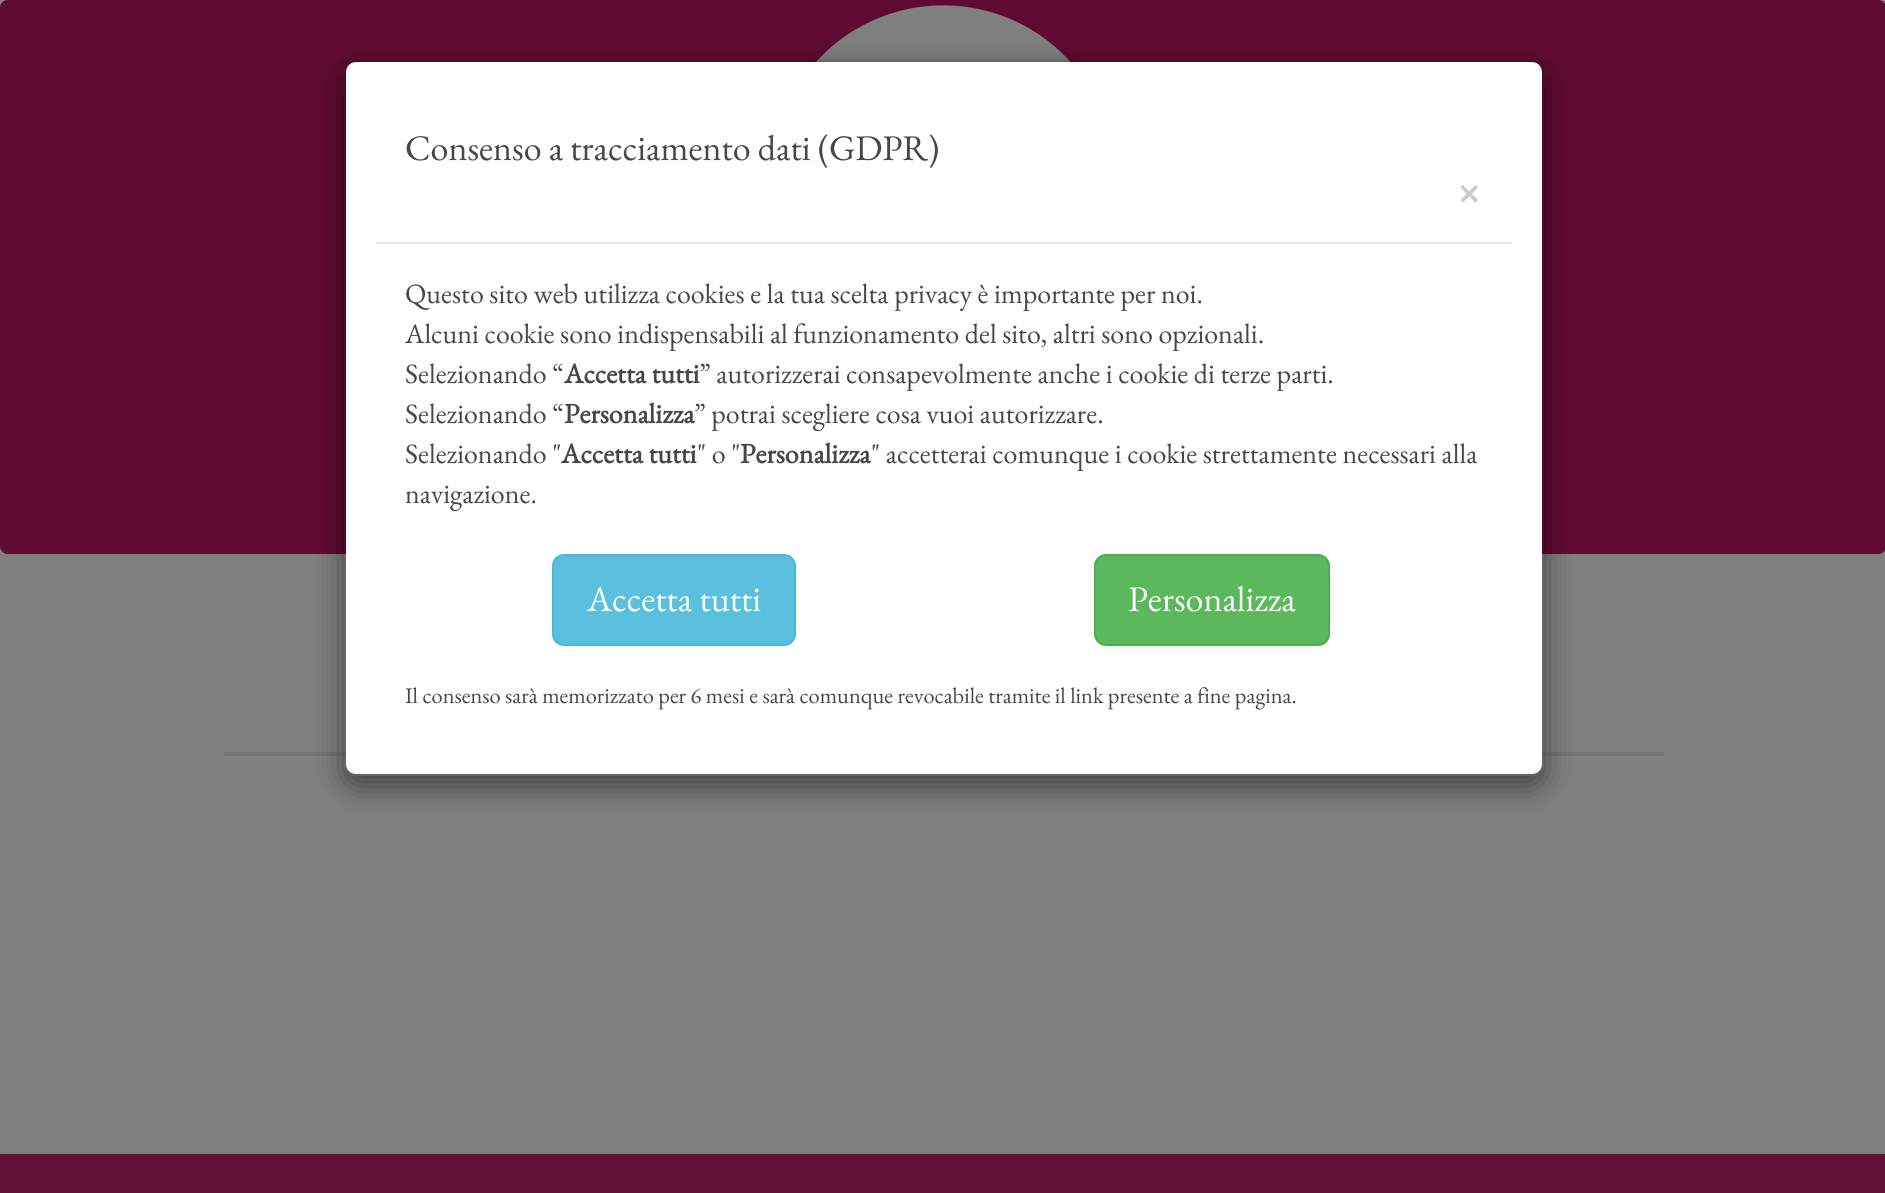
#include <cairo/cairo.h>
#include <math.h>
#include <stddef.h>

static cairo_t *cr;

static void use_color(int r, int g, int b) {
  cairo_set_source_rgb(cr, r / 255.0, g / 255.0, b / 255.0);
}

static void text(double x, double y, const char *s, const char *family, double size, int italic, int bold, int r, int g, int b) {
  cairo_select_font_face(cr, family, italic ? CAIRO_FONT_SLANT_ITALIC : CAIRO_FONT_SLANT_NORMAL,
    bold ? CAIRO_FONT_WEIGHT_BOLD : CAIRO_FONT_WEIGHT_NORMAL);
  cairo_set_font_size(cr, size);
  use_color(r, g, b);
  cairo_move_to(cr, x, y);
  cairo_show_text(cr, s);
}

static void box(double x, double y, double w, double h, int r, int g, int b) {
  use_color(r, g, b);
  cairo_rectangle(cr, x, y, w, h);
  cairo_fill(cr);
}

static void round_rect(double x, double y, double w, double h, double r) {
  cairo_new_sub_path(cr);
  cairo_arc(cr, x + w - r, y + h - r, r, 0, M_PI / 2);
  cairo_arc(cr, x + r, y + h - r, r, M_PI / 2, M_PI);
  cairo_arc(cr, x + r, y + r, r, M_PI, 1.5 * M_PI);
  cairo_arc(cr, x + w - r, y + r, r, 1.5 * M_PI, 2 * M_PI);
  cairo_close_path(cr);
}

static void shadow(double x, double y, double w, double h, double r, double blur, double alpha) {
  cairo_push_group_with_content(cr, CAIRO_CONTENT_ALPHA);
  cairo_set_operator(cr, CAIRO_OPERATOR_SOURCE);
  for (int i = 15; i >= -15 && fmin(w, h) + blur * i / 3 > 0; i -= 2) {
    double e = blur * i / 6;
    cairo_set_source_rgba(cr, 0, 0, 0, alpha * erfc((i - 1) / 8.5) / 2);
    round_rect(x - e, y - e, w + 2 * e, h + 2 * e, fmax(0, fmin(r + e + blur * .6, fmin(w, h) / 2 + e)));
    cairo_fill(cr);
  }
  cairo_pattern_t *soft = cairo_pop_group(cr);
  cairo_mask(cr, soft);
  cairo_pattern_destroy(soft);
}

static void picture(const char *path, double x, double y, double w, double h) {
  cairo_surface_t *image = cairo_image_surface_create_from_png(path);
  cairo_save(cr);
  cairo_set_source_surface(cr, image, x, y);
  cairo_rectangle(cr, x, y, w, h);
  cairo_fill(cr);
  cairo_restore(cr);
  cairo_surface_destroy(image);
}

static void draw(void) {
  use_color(128, 128, 128);
  cairo_paint(cr);
  use_color(96, 11, 49);
  round_rect(0, 0, 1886, 554, 8);
  cairo_fill(cr);
  round_rect(1, 1, 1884, 552, 7);
  cairo_set_source_rgba(cr, 0.376, 0.043, 0.192, 0.5);
  cairo_stroke(cr);
  picture("img_01.png", 811, 2, 264, 60);
  box(224, 752, 122, 4, 117, 117, 118);
  box(1542, 752, 122, 4, 117, 117, 118);
  cairo_save(cr);
  cairo_set_fill_rule(cr, CAIRO_FILL_RULE_EVEN_ODD);
  cairo_new_path(cr);
  cairo_move_to(cr, 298, 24);
  cairo_line_to(cr, 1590, 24);
  cairo_line_to(cr, 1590, 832);
  cairo_line_to(cr, 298, 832);
  cairo_close_path(cr);
  cairo_move_to(cr, 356, 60);
  cairo_line_to(cr, 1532, 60);
  cairo_curve_to(cr, 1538.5, 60, 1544, 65.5, 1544, 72);
  cairo_line_to(cr, 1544, 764);
  cairo_curve_to(cr, 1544, 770.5, 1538.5, 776, 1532, 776);
  cairo_line_to(cr, 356, 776);
  cairo_curve_to(cr, 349.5, 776, 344, 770.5, 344, 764);
  cairo_line_to(cr, 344, 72);
  cairo_curve_to(cr, 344, 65.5, 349.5, 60, 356, 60);
  cairo_close_path(cr);
  cairo_clip(cr);
  use_color(0, 0, 0);
  shadow(344, 70, 1200, 716, 12, 15, 0.5);
  cairo_restore(cr);
  use_color(255, 255, 255);
  round_rect(346, 62, 1196, 712, 10);
  cairo_fill(cr);
  round_rect(345, 61, 1198, 714, 11);
  cairo_set_source_rgba(cr, 0, 0, 0, 0.2);
  cairo_stroke(cr);
  box(376, 242, 1136, 2, 229, 229, 229);
  use_color(91, 192, 222);
  round_rect(553, 555, 242, 90, 11);
  cairo_fill_preserve(cr);
  use_color(70, 184, 218);
  cairo_stroke(cr);
  use_color(92, 184, 92);
  round_rect(1095, 555, 234, 90, 11);
  cairo_fill_preserve(cr);
  use_color(76, 174, 76);
  cairo_stroke(cr);
  box(0, 1154, 1885, 39, 96, 17, 53);
  text(405, 160, "Consenso a tracciamento dati (GDPR)", "EB Garamond", 36, 0, 0, 71, 71, 71);
  text(1456, 205, "×", "EB Garamond", 42, 0, 1, 204, 204, 204);
  text(405, 303, "Questo sito web utilizza cookies e la tua scelta privacy è importante per noi.", "EB Garamond", 28, 0, 0, 71, 71, 71);
  text(405, 343, "Alcuni cookie sono indispensabili al funzionamento del sito, altri sono opzionali.", "EB Garamond", 28, 0, 0, 71, 71, 71);
  text(405, 383, "Selezionando “", "EB Garamond", 28, 0, 0, 71, 71, 71);
  text(564, 383, "Accetta tutti", "EB Garamond", 28, 0, 1, 71, 71, 71);
  text(699, 383, "” autorizzerai consapevolmente anche i cookie di terze parti.", "EB Garamond", 28, 0, 0, 71, 71, 71);
  text(405, 423, "Selezionando “", "EB Garamond", 28, 0, 0, 71, 71, 71);
  text(564, 423, "Personalizza", "EB Garamond", 28, 0, 1, 71, 71, 71);
  text(694, 423, "” potrai scegliere cosa vuoi autorizzare.", "EB Garamond", 28, 0, 0, 71, 71, 71);
  text(405, 463, "Selezionando \"", "EB Garamond", 28, 0, 0, 71, 71, 71);
  text(561, 463, "Accetta tutti", "EB Garamond", 28, 0, 1, 71, 71, 71);
  text(697, 463, "\" o \"", "EB Garamond", 28, 0, 0, 71, 71, 71);
  text(740, 463, "Personalizza", "EB Garamond", 28, 0, 1, 71, 71, 71);
  text(871, 463, "\" accetterai comunque i cookie strettamente necessari alla", "EB Garamond", 28, 0, 0, 71, 71, 71);
  text(405, 503, "navigazione.", "EB Garamond", 28, 0, 0, 71, 71, 71);
  text(587, 611, "Accetta tutti", "EB Garamond", 36, 0, 0, 255, 255, 255);
  text(1128, 611, "Personalizza", "EB Garamond", 36, 0, 0, 255, 255, 255);
  text(405, 703, "Il consenso sarà memorizzato per 6 mesi e sarà comunque revocabile tramite il link presente a fine pagina.", "EB Garamond", 22.4, 0, 0, 71, 71, 71);
}

int main(void) {
  cairo_surface_t *surface = cairo_image_surface_create(CAIRO_FORMAT_RGB24, 1885, 1193);
  cr = cairo_create(surface);
  cairo_font_options_t *options = cairo_font_options_create();
  cairo_font_options_set_hint_metrics(options, CAIRO_HINT_METRICS_OFF);
  cairo_font_options_set_hint_style(options, CAIRO_HINT_STYLE_NONE);
  cairo_set_font_options(cr, options);
  cairo_set_miter_limit(cr, 4);
  draw();
  cairo_surface_write_to_png(surface, "out.png");
  cairo_font_options_destroy(options);
  cairo_destroy(cr);
  cairo_surface_destroy(surface);
  return 0;
}
